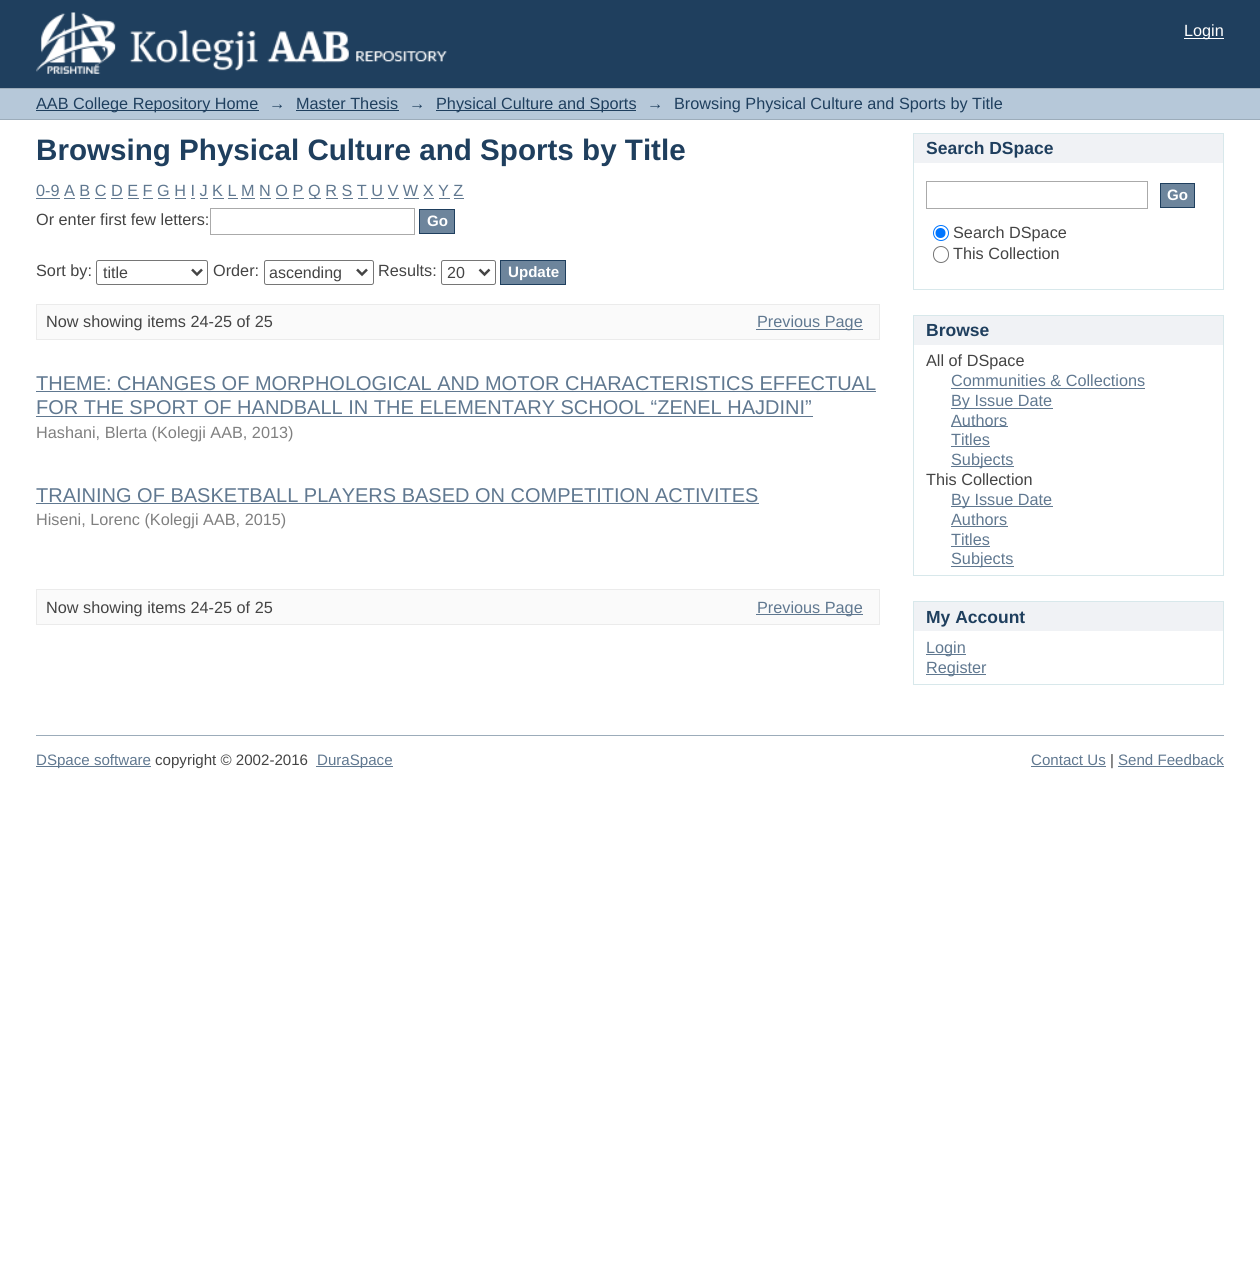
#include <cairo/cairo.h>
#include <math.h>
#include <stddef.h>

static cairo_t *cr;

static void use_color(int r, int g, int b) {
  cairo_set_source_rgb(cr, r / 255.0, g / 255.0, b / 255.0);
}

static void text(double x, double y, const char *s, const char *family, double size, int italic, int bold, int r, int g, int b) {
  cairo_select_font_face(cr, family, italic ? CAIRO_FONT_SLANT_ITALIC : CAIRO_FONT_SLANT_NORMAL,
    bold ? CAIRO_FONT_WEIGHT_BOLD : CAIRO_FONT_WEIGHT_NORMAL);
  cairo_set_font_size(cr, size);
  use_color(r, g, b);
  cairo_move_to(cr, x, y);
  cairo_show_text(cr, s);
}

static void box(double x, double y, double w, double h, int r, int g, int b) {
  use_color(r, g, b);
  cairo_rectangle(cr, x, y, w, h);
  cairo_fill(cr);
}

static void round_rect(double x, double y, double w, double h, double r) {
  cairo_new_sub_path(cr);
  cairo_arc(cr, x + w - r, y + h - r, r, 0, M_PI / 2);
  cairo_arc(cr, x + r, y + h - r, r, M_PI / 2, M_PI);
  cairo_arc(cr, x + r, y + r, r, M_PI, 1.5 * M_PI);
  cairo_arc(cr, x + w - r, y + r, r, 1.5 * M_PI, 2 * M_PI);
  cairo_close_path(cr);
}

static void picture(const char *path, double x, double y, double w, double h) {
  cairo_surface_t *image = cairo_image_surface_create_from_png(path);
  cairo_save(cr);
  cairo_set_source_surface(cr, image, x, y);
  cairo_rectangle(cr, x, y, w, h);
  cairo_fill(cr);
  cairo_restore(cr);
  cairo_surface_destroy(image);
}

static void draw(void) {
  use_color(255, 255, 255);
  cairo_paint(cr);
  box(0, 0, 1260, 88, 31, 63, 94);
  picture("img_01.png", 36, 12, 411, 62);
  box(1184, 38, 40, 1, 255, 255, 255);
  box(0, 89, 1260, 30, 182, 200, 217);
  box(0, 88, 1260, 1, 156, 172, 186);
  box(0, 119, 1260, 1, 156, 172, 186);
  box(36, 110, 223, 1, 31, 63, 94);
  box(296, 110, 103, 1, 31, 63, 94);
  box(436, 110, 200, 1, 31, 63, 94);
  box(36, 198, 24, 1, 96, 120, 144);
  box(309, 198, 12, 1, 96, 120, 144);
  box(64, 198, 11, 1, 96, 120, 144);
  box(80, 198, 10, 1, 96, 120, 144);
  box(95, 198, 11, 1, 96, 120, 144);
  box(111, 198, 12, 1, 96, 120, 144);
  box(128, 198, 11, 1, 96, 120, 144);
  box(143, 198, 10, 1, 96, 120, 144);
  box(158, 198, 12, 1, 96, 120, 144);
  box(175, 198, 11, 1, 96, 120, 144);
  box(191, 198, 4, 1, 96, 120, 144);
  box(200, 198, 8, 1, 96, 120, 144);
  box(213, 198, 11, 1, 96, 120, 144);
  box(228, 198, 10, 1, 96, 120, 144);
  box(241, 198, 14, 1, 96, 120, 144);
  box(260, 198, 11, 1, 96, 120, 144);
  box(276, 198, 13, 1, 96, 120, 144);
  box(293, 198, 11, 1, 96, 120, 144);
  box(326, 198, 12, 1, 96, 120, 144);
  box(343, 198, 10, 1, 96, 120, 144);
  box(358, 198, 10, 1, 96, 120, 144);
  box(371, 198, 13, 1, 96, 120, 144);
  box(388, 198, 11, 1, 96, 120, 144);
  box(404, 198, 15, 1, 96, 120, 144);
  box(424, 198, 10, 1, 96, 120, 144);
  box(439, 198, 11, 1, 96, 120, 144);
  box(454, 198, 10, 1, 96, 120, 144);
  cairo_rectangle(cr, 210.5, 208.5, 204, 26);
  use_color(170, 170, 170);
  cairo_set_line_width(cr, 1);
  cairo_stroke(cr);
  use_color(109, 133, 156);
  cairo_rectangle(cr, 419.5, 209.5, 35, 24);
  cairo_fill_preserve(cr);
  use_color(31, 63, 94);
  cairo_stroke(cr);
  round_rect(96.5, 260.5, 111, 24, 2);
  use_color(118, 118, 118);
  cairo_stroke(cr);
  cairo_new_path(cr);
  cairo_move_to(cr, 192, 269.5);
  cairo_line_to(cr, 197, 274.5);
  cairo_line_to(cr, 202, 269.5);
  use_color(68, 68, 68);
  cairo_set_line_width(cr, 2.5);
  cairo_stroke(cr);
  round_rect(264.5, 260.5, 109, 24, 2);
  use_color(118, 118, 118);
  cairo_set_line_width(cr, 1);
  cairo_stroke(cr);
  cairo_new_path(cr);
  cairo_move_to(cr, 357, 269.5);
  cairo_line_to(cr, 362, 274.5);
  cairo_line_to(cr, 367, 269.5);
  use_color(68, 68, 68);
  cairo_set_line_width(cr, 2.5);
  cairo_stroke(cr);
  round_rect(441.5, 260.5, 54, 24, 2);
  use_color(118, 118, 118);
  cairo_set_line_width(cr, 1);
  cairo_stroke(cr);
  cairo_new_path(cr);
  cairo_move_to(cr, 479.5, 269.5);
  cairo_line_to(cr, 484.5, 274.5);
  cairo_line_to(cr, 489.5, 269.5);
  use_color(68, 68, 68);
  cairo_set_line_width(cr, 2.5);
  cairo_stroke(cr);
  use_color(109, 133, 156);
  cairo_rectangle(cr, 500.5, 260.5, 65, 24);
  cairo_fill_preserve(cr);
  use_color(31, 63, 94);
  cairo_set_line_width(cr, 1);
  cairo_stroke(cr);
  use_color(250, 250, 250);
  cairo_rectangle(cr, 36.5, 304.5, 843, 35);
  cairo_fill_preserve(cr);
  use_color(235, 235, 235);
  cairo_stroke(cr);
  box(756, 329, 107, 1, 96, 120, 144);
  box(36, 391, 840, 1, 96, 120, 144);
  box(36, 416, 777, 1, 96, 120, 144);
  box(36, 503, 723, 1, 96, 120, 144);
  use_color(250, 250, 250);
  cairo_rectangle(cr, 36.5, 589.5, 843, 35);
  cairo_fill_preserve(cr);
  use_color(235, 235, 235);
  cairo_stroke(cr);
  box(756, 614, 107, 1, 96, 120, 144);
  box(914, 134, 309, 29, 240, 242, 245);
  box(913, 133, 311, 1, 216, 232, 235);
  box(1223, 133, 1, 157, 216, 232, 235);
  box(913, 133, 1, 30, 216, 232, 235);
  box(913, 289, 311, 1, 216, 232, 235);
  box(913, 163, 1, 127, 216, 232, 235);
  cairo_rectangle(cr, 926.5, 181.5, 221, 27);
  use_color(170, 170, 170);
  cairo_stroke(cr);
  use_color(109, 133, 156);
  cairo_rectangle(cr, 1160.5, 183.5, 34, 24);
  cairo_fill_preserve(cr);
  use_color(31, 63, 94);
  cairo_stroke(cr);
  cairo_arc(cr, 941, 233, 7.5, 0, 2 * M_PI);
  use_color(0, 117, 255);
  cairo_stroke(cr);
  cairo_arc(cr, 940.5, 233, 5, 0, 2 * M_PI);
  cairo_fill(cr);
  round_rect(933.5, 246.5, 15, 16, 7.5);
  use_color(118, 118, 118);
  cairo_stroke(cr);
  box(914, 316, 309, 29, 240, 242, 245);
  box(913, 315, 311, 1, 216, 232, 235);
  box(1223, 315, 1, 261, 216, 232, 235);
  box(913, 315, 1, 30, 216, 232, 235);
  box(913, 575, 311, 1, 216, 232, 235);
  box(913, 345, 1, 231, 216, 232, 235);
  box(951, 388, 194, 1, 96, 120, 144);
  box(951, 408, 102, 1, 96, 120, 144);
  box(951, 426, 57, 1, 96, 120, 144);
  box(951, 446, 39, 1, 96, 120, 144);
  box(951, 466, 63, 1, 96, 120, 144);
  box(951, 506, 102, 1, 96, 120, 144);
  box(951, 526, 57, 1, 96, 120, 144);
  box(951, 546, 39, 1, 96, 120, 144);
  box(951, 566, 63, 1, 96, 120, 144);
  box(914, 602, 309, 29, 240, 242, 245);
  box(913, 601, 311, 1, 216, 232, 235);
  box(1223, 601, 1, 84, 216, 232, 235);
  box(913, 601, 1, 30, 216, 232, 235);
  box(913, 684, 311, 1, 216, 232, 235);
  box(913, 631, 1, 54, 216, 232, 235);
  box(926, 654, 40, 1, 96, 120, 144);
  box(926, 674, 60, 1, 96, 120, 144);
  box(36, 735, 1188, 1, 156, 172, 186);
  box(36, 766, 115, 1, 96, 120, 144);
  box(316, 766, 77, 1, 96, 120, 144);
  box(1031, 766, 75, 1, 96, 120, 144);
  box(1118, 766, 106, 1, 96, 120, 144);
  text(1184, 36, "Login", "Liberation Sans", 16.25, 0, 0, 255, 255, 255);
  text(36, 109, "AAB College Repository Home", "Liberation Sans", 16.25, 0, 0, 31, 63, 94);
  text(269, 109, "→", "Liberation Sans", 16.25, 0, 0, 31, 63, 94);
  text(296, 109, "Master Thesis", "Liberation Sans", 16.25, 0, 0, 31, 63, 94);
  text(409, 109, "→", "Liberation Sans", 16.25, 0, 0, 31, 63, 94);
  text(436, 109, "Physical Culture and Sports", "Liberation Sans", 16.25, 0, 0, 31, 63, 94);
  text(647, 109, "→", "Liberation Sans", 16.25, 0, 0, 31, 63, 94);
  text(674, 109, "Browsing Physical Culture and Sports by Title", "Liberation Sans", 16.25, 0, 0, 31, 63, 94);
  text(36, 160, "Browsing Physical Culture and Sports by Title", "Liberation Sans", 29.6, 0, 1, 31, 63, 94);
  text(36, 196, "0-9 A B C D E F G H I J K L M N O P", "Liberation Sans", 16.25, 0, 0, 96, 120, 144);
  text(308, 196, "Q R S T U V W X Y Z", "Liberation Sans", 16.25, 0, 0, 96, 120, 144);
  text(36, 225, "Or enter first few letters:", "Liberation Sans", 16.25, 0, 0, 68, 68, 68);
  text(427, 226, "Go", "Liberation Sans", 15.1, 0, 1, 255, 255, 255);
  text(36, 276, "Sort by:", "Liberation Sans", 16.25, 0, 0, 68, 68, 68);
  text(103, 278, "title", "Liberation Sans", 16, 0, 0, 68, 68, 68);
  text(213, 276, "Order:", "Liberation Sans", 16.25, 0, 0, 68, 68, 68);
  text(269, 278, "ascending", "Liberation Sans", 16, 0, 0, 68, 68, 68);
  text(378, 276, "Results:", "Liberation Sans", 16.25, 0, 0, 68, 68, 68);
  text(447, 278, "20", "Liberation Sans", 16, 0, 0, 68, 68, 68);
  text(508, 277, "Update", "Liberation Sans", 15.1, 0, 1, 255, 255, 255);
  text(46, 327, "Now showing items 24-25 of 25", "Liberation Sans", 16.25, 0, 0, 68, 68, 68);
  text(757, 327, "Previous Page", "Liberation Sans", 16.25, 0, 0, 96, 120, 144);
  text(36, 390, "THEME: CHANGES OF MORPHOLOGICAL AND MOTOR CHARACTERISTICS EFFECTUAL", "Liberation Sans", 20, 0, 0, 96, 120, 144);
  text(36, 414, "FOR THE SPORT OF HANDBALL IN THE ELEMENTARY SCHOOL “ZENEL HAJDINI”", "Liberation Sans", 20, 0, 0, 96, 120, 144);
  text(36, 438, "Hashani, Blerta (Kolegji AAB, 2013)", "Liberation Sans", 16.25, 0, 0, 128, 128, 128);
  text(36, 502, "TRAINING OF BASKETBALL PLAYERS BASED ON COMPETITION ACTIVITES", "Liberation Sans", 20, 0, 0, 96, 120, 144);
  text(36, 525, "Hiseni, Lorenc (Kolegji AAB, 2015)", "Liberation Sans", 16.25, 0, 0, 128, 128, 128);
  text(46, 613, "Now showing items 24-25 of 25", "Liberation Sans", 16.25, 0, 0, 68, 68, 68);
  text(757, 613, "Previous Page", "Liberation Sans", 16.25, 0, 0, 96, 120, 144);
  text(926, 154, "Search DSpace", "Liberation Sans", 17.5, 0, 1, 31, 63, 94);
  text(1167, 200, "Go", "Liberation Sans", 15.1, 0, 1, 255, 255, 255);
  text(953, 238, "Search DSpace", "Liberation Sans", 16.25, 0, 0, 68, 68, 68);
  text(953, 259, "This Collection", "Liberation Sans", 16.25, 0, 0, 68, 68, 68);
  text(926, 336, "Browse", "Liberation Sans", 17.5, 0, 1, 31, 63, 94);
  text(926, 366, "All of DSpace", "Liberation Sans", 16.25, 0, 0, 68, 68, 68);
  text(951, 386, "Communities & Collections", "Liberation Sans", 16.25, 0, 0, 96, 120, 144);
  text(951, 406, "By Issue Date", "Liberation Sans", 16.25, 0, 0, 96, 120, 144);
  text(951, 426, "Authors", "Liberation Sans", 16.25, 0, 0, 96, 120, 144);
  text(951, 445, "Titles", "Liberation Sans", 16.25, 0, 0, 96, 120, 144);
  text(951, 465, "Subjects", "Liberation Sans", 16.25, 0, 0, 96, 120, 144);
  text(926, 485, "This Collection", "Liberation Sans", 16.25, 0, 0, 68, 68, 68);
  text(951, 505, "By Issue Date", "Liberation Sans", 16.25, 0, 0, 96, 120, 144);
  text(951, 525, "Authors", "Liberation Sans", 16.25, 0, 0, 96, 120, 144);
  text(951, 545, "Titles", "Liberation Sans", 16.25, 0, 0, 96, 120, 144);
  text(951, 564, "Subjects", "Liberation Sans", 16.25, 0, 0, 96, 120, 144);
  text(926, 623, "My Account", "Liberation Sans", 17.5, 0, 1, 31, 63, 94);
  text(926, 653, "Login", "Liberation Sans", 16.25, 0, 0, 96, 120, 144);
  text(926, 673, "Register", "Liberation Sans", 16.25, 0, 0, 96, 120, 144);
  text(36, 765, "DSpace software", "Liberation Sans", 15.1, 0, 0, 96, 120, 144);
  text(155, 765, "copyright © 2002-2016", "Liberation Sans", 15.1, 0, 0, 68, 68, 68);
  text(317, 765, "DuraSpace", "Liberation Sans", 15.1, 0, 0, 96, 120, 144);
  text(1031, 765, "Contact Us", "Liberation Sans", 15.1, 0, 0, 96, 120, 144);
  text(1110, 765, "|", "Liberation Sans", 15.1, 0, 0, 68, 68, 68);
  text(1118, 765, "Send Feedback", "Liberation Sans", 15.1, 0, 0, 96, 120, 144);
}

int main(void) {
  cairo_surface_t *surface = cairo_image_surface_create(CAIRO_FORMAT_RGB24, 1260, 1281);
  cr = cairo_create(surface);
  cairo_font_options_t *options = cairo_font_options_create();
  cairo_font_options_set_hint_metrics(options, CAIRO_HINT_METRICS_OFF);
  cairo_font_options_set_hint_style(options, CAIRO_HINT_STYLE_NONE);
  cairo_set_font_options(cr, options);
  cairo_set_miter_limit(cr, 4);
  draw();
  cairo_surface_write_to_png(surface, "out.png");
  cairo_font_options_destroy(options);
  cairo_destroy(cr);
  cairo_surface_destroy(surface);
  return 0;
}
